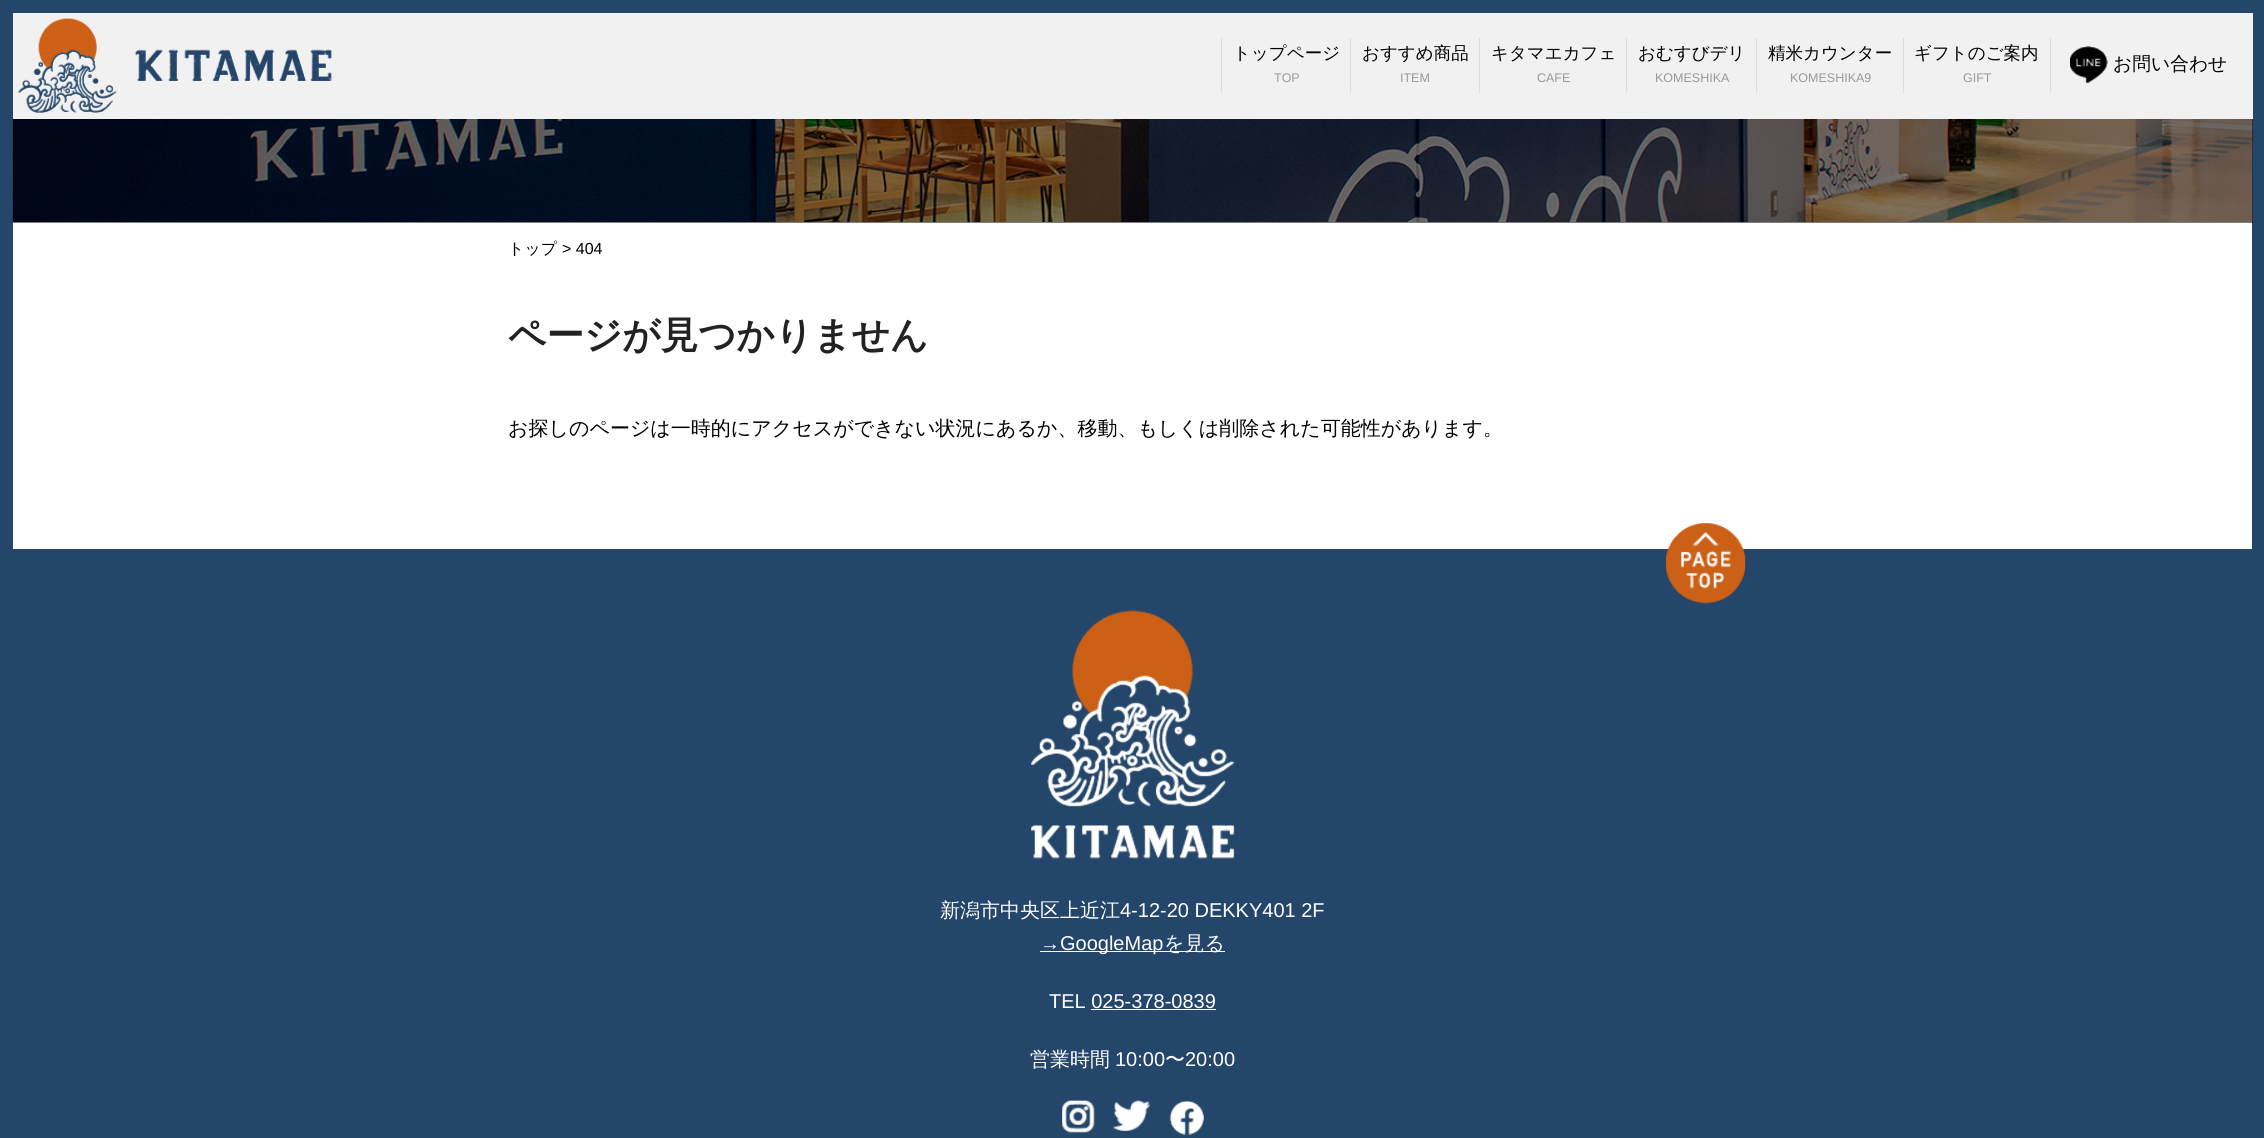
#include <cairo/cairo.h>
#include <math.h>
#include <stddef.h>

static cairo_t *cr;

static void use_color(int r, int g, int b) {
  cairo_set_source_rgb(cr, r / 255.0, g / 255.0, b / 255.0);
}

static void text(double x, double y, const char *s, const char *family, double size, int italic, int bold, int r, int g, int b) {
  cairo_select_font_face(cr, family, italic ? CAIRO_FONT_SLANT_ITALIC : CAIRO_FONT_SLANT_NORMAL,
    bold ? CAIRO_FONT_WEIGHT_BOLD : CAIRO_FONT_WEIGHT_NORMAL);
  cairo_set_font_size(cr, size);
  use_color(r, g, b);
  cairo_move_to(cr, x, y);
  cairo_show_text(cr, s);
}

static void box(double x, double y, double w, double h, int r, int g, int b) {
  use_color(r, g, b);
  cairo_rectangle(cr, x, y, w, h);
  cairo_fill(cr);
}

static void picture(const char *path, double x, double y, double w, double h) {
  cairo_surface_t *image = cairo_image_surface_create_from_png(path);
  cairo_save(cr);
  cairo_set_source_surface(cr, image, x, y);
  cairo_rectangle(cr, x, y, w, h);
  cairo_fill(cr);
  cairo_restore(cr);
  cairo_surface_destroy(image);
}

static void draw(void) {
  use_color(255, 255, 255);
  cairo_paint(cr);
  cairo_rectangle(cr, 6.5, -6.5, 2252, 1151);
  use_color(36, 70, 106);
  cairo_set_line_width(cr, 13);
  cairo_stroke(cr);
  box(13, 13, 2240, 106, 241, 241, 241);
  box(13, 0, 2239, 13, 36, 70, 106);
  picture("img_01.png", 18, 18, 314, 95);
  picture("img_02.png", 18, 18, 314, 95);
  box(1221, 38, 1, 55, 221, 221, 221);
  box(1350, 38, 1, 55, 221, 221, 221);
  box(1479, 38, 1, 55, 221, 221, 221);
  box(1626, 38, 1, 55, 221, 221, 221);
  box(1756, 38, 1, 55, 221, 221, 221);
  box(2050, 38, 1, 55, 221, 221, 221);
  box(1903, 38, 1, 55, 221, 221, 221);
  picture("img_03.png", 2070, 46, 38, 37);
  picture("img_04.png", 2070, 46, 38, 37);
  picture("img_05.png", 12, 119, 2241, 103);
  cairo_set_source_rgba(cr, 0, 0, 0, 0.5);
  cairo_rectangle(cr, 13, 119, 2240, 104);
  cairo_fill(cr);
  box(13, 549, 2239, 589, 36, 70, 106);
  picture("img_06.png", 1666, 523, 80, 81);
  picture("img_07.png", 1666, 523, 79, 81);
  picture("img_08.png", 1031, 610, 204, 249);
  picture("img_09.png", 1031, 610, 203, 249);
  box(1040, 951, 185, 1, 255, 255, 255);
  box(1091, 1009, 125, 1, 255, 255, 255);
  picture("img_10.png", 1062, 1100, 33, 33);
  picture("img_11.png", 1062, 1100, 33, 33);
  picture("img_12.png", 1113, 1100, 38, 31);
  picture("img_13.png", 1113, 1100, 38, 31);
  picture("img_14.png", 1169, 1101, 35, 34);
  picture("img_15.png", 1170, 1101, 34, 34);
  text(1233, 59, "トップページ", "WenQuanYi Zen Hei Medium", 17.5, 0, 0, 0, 0, 0);
  text(1274, 82, "TOP", "Liberation Sans", 12.5, 0, 0, 153, 153, 153);
  text(1362, 59, "おすすめ商品", "WenQuanYi Zen Hei Medium", 17.5, 0, 0, 0, 0, 0);
  text(1400, 82, "ITEM", "Liberation Sans", 12.5, 0, 0, 153, 153, 153);
  text(1491, 59, "キタマエカフェ", "WenQuanYi Zen Hei Medium", 17.5, 0, 0, 0, 0, 0);
  text(1537, 82, "CAFE", "Liberation Sans", 12.5, 0, 0, 153, 153, 153);
  text(1638, 59, "おむすびデリ", "WenQuanYi Zen Hei Medium", 17.5, 0, 0, 0, 0, 0);
  text(1655, 82, "KOMESHIKA", "Liberation Sans", 12.5, 0, 0, 153, 153, 153);
  text(1768, 59, "精米カウンター", "WenQuanYi Zen Hei Medium", 17.5, 0, 0, 0, 0, 0);
  text(1790, 82, "KOMESHIKA9", "Liberation Sans", 12.5, 0, 0, 153, 153, 153);
  text(1914, 59, "ギフトのご案内", "WenQuanYi Zen Hei Medium", 17.5, 0, 0, 0, 0, 0);
  text(1963, 82, "GIFT", "Liberation Sans", 12.5, 0, 0, 153, 153, 153);
  text(2113, 70, "お問い合わせ", "WenQuanYi Zen Hei Medium", 18.75, 0, 0, 0, 0, 0);
  text(508, 254, "トップ", "WenQuanYi Zen Hei Medium", 16, 0, 0, 0, 0, 0);
  text(562, 254, "> 404", "Liberation Sans", 16, 0, 0, 0, 0, 0);
  text(508, 348, "ページが見つかりません", "WenQuanYi Zen Hei", 37.5, 0, 1, 34, 34, 34);
  text(508, 435, "お探しのページは一時的にアクセスができない状況にあるか、移動、もしくは削除された可能性があります。", "WenQuanYi Zen Hei Medium", 20, 0, 0, 0, 0, 0);
  text(940, 917, "新潟市中央区上近江", "WenQuanYi Zen Hei Medium", 20, 0, 0, 255, 255, 255);
  text(1120, 917, "4-12-20 DEKKY401 2F", "Liberation Sans", 20, 0, 0, 255, 255, 255);
  text(1040, 950, "→GoogleMap", "Liberation Sans", 20, 0, 0, 255, 255, 255);
  text(1164, 950, "を見る", "WenQuanYi Zen Hei Medium", 20, 0, 0, 255, 255, 255);
  text(1049, 1008, "TEL 025-378-0839", "Liberation Sans", 20, 0, 0, 255, 255, 255);
  text(1030, 1066, "営業時間", "WenQuanYi Zen Hei Medium", 20, 0, 0, 255, 255, 255);
  text(1115, 1066, "10:00", "Liberation Sans", 20, 0, 0, 255, 255, 255);
  text(1165, 1066, "〜", "WenQuanYi Zen Hei Medium", 20, 0, 0, 255, 255, 255);
  text(1185, 1066, "20:00", "Liberation Sans", 20, 0, 0, 255, 255, 255);
}

int main(void) {
  cairo_surface_t *surface = cairo_image_surface_create(CAIRO_FORMAT_RGB24, 2264, 1138);
  cr = cairo_create(surface);
  cairo_font_options_t *options = cairo_font_options_create();
  cairo_font_options_set_hint_metrics(options, CAIRO_HINT_METRICS_OFF);
  cairo_font_options_set_hint_style(options, CAIRO_HINT_STYLE_NONE);
  cairo_set_font_options(cr, options);
  cairo_set_miter_limit(cr, 4);
  draw();
  cairo_surface_write_to_png(surface, "out.png");
  cairo_font_options_destroy(options);
  cairo_destroy(cr);
  cairo_surface_destroy(surface);
  return 0;
}
